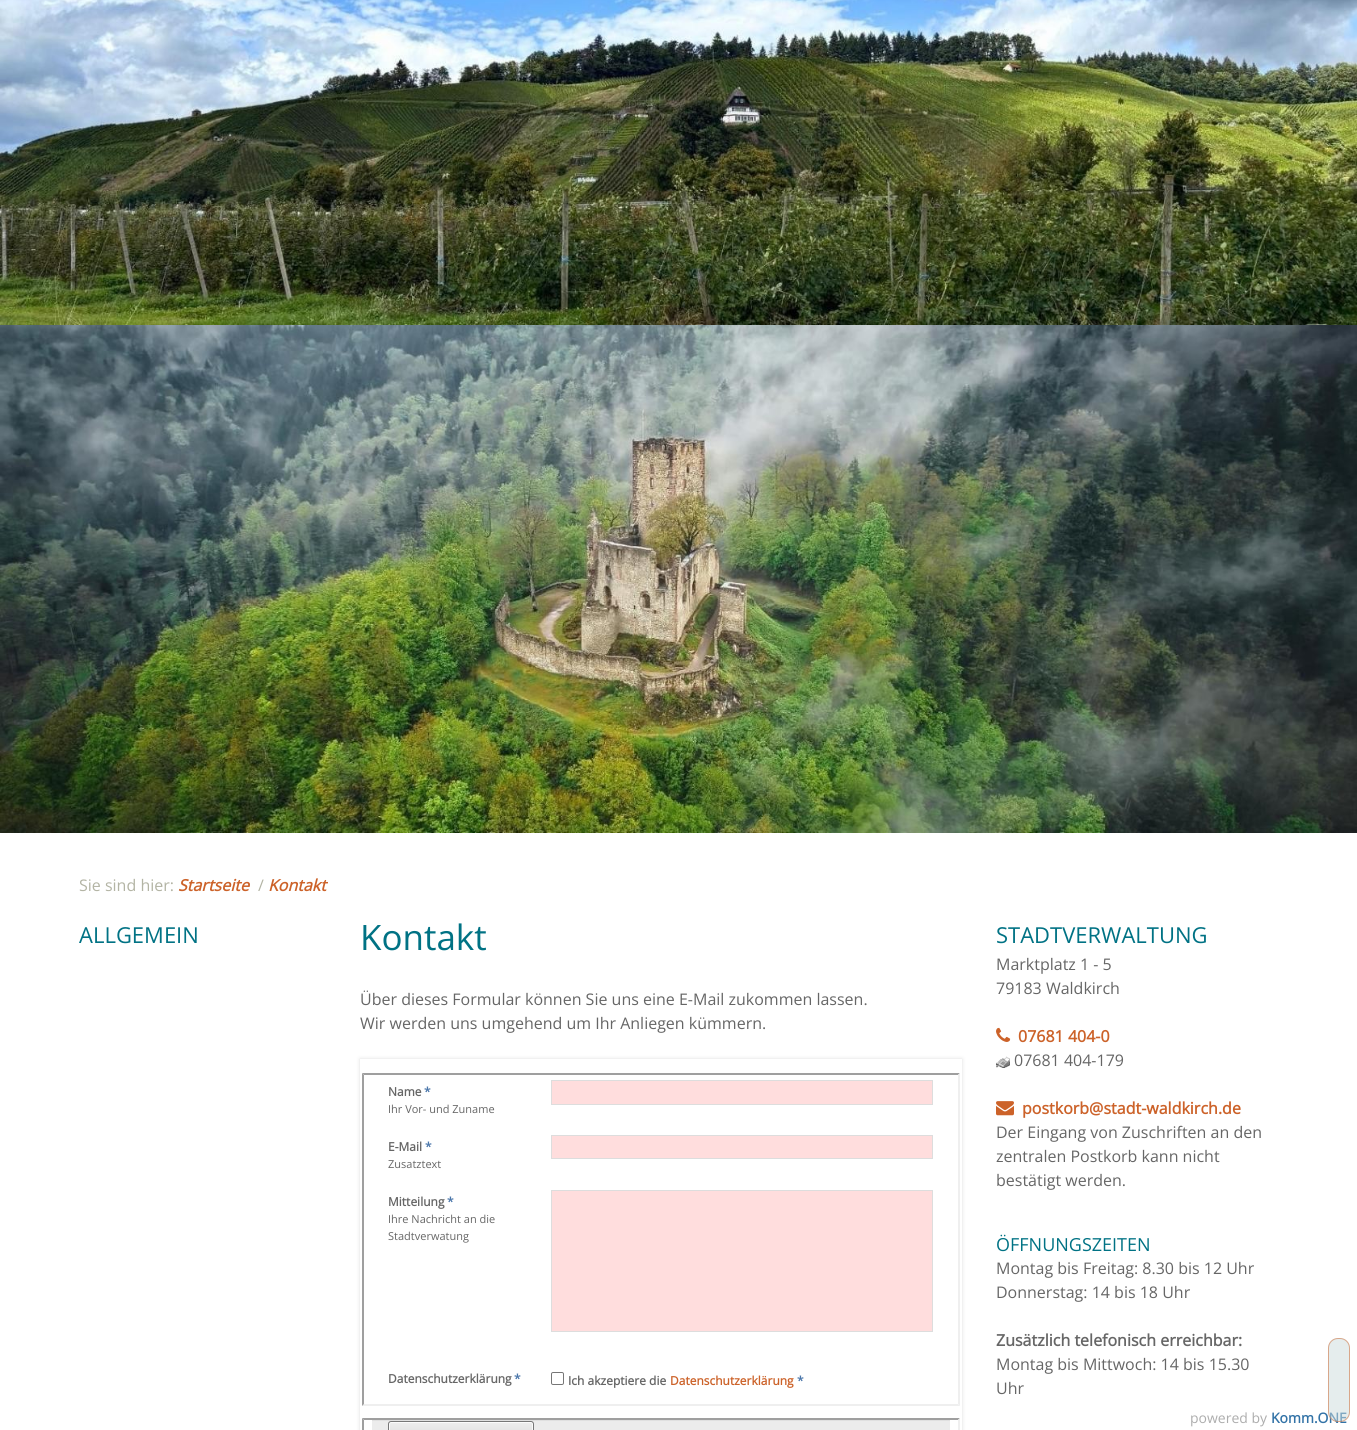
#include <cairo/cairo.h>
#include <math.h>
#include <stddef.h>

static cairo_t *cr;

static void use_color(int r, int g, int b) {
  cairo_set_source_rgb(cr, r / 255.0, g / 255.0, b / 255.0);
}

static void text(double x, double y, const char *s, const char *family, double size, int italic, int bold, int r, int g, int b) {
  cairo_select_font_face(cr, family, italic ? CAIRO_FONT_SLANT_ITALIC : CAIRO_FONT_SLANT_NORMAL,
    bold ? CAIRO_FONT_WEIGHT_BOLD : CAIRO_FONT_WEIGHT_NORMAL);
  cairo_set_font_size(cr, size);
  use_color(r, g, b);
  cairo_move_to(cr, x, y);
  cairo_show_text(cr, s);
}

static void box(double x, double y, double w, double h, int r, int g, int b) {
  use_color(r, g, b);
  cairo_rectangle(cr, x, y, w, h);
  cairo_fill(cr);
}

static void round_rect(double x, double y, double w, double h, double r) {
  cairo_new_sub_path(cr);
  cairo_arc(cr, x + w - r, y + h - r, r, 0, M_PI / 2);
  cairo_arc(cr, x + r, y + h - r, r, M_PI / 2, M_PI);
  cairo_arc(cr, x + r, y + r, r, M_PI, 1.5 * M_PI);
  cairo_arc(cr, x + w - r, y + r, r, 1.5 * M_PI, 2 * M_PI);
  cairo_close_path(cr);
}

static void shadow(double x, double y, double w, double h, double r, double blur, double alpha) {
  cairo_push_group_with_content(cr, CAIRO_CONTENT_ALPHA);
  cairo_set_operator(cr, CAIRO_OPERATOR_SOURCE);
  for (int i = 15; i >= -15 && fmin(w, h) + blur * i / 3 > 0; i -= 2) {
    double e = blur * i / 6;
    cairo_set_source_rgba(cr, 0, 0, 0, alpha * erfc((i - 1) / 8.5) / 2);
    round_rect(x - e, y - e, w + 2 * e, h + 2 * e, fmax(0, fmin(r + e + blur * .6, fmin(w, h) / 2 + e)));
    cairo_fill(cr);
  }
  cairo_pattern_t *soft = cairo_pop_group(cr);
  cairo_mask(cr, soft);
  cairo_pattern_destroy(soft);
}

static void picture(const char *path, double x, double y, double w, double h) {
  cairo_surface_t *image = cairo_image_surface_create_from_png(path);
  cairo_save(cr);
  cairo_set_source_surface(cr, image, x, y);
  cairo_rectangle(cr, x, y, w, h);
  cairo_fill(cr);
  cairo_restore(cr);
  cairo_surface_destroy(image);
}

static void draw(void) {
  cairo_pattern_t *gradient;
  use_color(255, 255, 255);
  cairo_paint(cr);
  picture("img_01.png", 0, 0, 1357, 325);
  picture("img_02.png", 0, 325, 1357, 508);
  cairo_save(cr);
  cairo_set_fill_rule(cr, CAIRO_FILL_RULE_EVEN_ODD);
  cairo_new_path(cr);
  cairo_move_to(cr, 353, 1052);
  cairo_line_to(cr, 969, 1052);
  cairo_line_to(cr, 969, 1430);
  cairo_line_to(cr, 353, 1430);
  cairo_close_path(cr);
  cairo_move_to(cr, 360, 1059);
  cairo_line_to(cr, 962, 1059);
  cairo_line_to(cr, 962, 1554);
  cairo_line_to(cr, 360, 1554);
  cairo_close_path(cr);
  cairo_clip(cr);
  use_color(221, 221, 221);
  shadow(360, 1059, 602, 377, 0, 2, 1);
  cairo_restore(cr);
  use_color(159, 159, 159);
  cairo_new_path(cr);
  cairo_move_to(cr, 362, 1073);
  cairo_line_to(cr, 960, 1073);
  cairo_line_to(cr, 958, 1075);
  cairo_line_to(cr, 364, 1075);
  cairo_close_path(cr);
  cairo_fill(cr);
  use_color(239, 239, 239);
  cairo_new_path(cr);
  cairo_move_to(cr, 960, 1073);
  cairo_line_to(cr, 960, 1406);
  cairo_line_to(cr, 958, 1404);
  cairo_line_to(cr, 958, 1075);
  cairo_close_path(cr);
  cairo_fill(cr);
  cairo_new_path(cr);
  cairo_move_to(cr, 960, 1406);
  cairo_line_to(cr, 362, 1406);
  cairo_line_to(cr, 364, 1404);
  cairo_line_to(cr, 958, 1404);
  cairo_close_path(cr);
  cairo_fill(cr);
  use_color(159, 159, 159);
  cairo_new_path(cr);
  cairo_move_to(cr, 362, 1406);
  cairo_line_to(cr, 362, 1073);
  cairo_line_to(cr, 364, 1075);
  cairo_line_to(cr, 364, 1404);
  cairo_close_path(cr);
  cairo_fill(cr);
  use_color(255, 221, 221);
  cairo_rectangle(cr, 551.5, 1080.5, 381, 24);
  cairo_fill_preserve(cr);
  use_color(221, 221, 221);
  cairo_set_line_width(cr, 1);
  cairo_stroke(cr);
  use_color(255, 221, 221);
  cairo_rectangle(cr, 551.5, 1135.5, 381, 23);
  cairo_fill_preserve(cr);
  use_color(221, 221, 221);
  cairo_stroke(cr);
  use_color(255, 221, 221);
  cairo_rectangle(cr, 551.5, 1190.5, 381, 141);
  cairo_fill_preserve(cr);
  use_color(221, 221, 221);
  cairo_stroke(cr);
  round_rect(551.5, 1372.5, 12, 12, 1.5);
  use_color(118, 118, 118);
  cairo_stroke(cr);
  use_color(159, 159, 159);
  cairo_new_path(cr);
  cairo_move_to(cr, 362, 1418);
  cairo_line_to(cr, 960, 1418);
  cairo_line_to(cr, 958, 1420);
  cairo_line_to(cr, 364, 1420);
  cairo_close_path(cr);
  cairo_fill(cr);
  use_color(239, 239, 239);
  cairo_new_path(cr);
  cairo_move_to(cr, 960, 1418);
  cairo_line_to(cr, 960, 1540);
  cairo_line_to(cr, 958, 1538);
  cairo_line_to(cr, 958, 1420);
  cairo_close_path(cr);
  cairo_fill(cr);
  use_color(159, 159, 159);
  cairo_new_path(cr);
  cairo_move_to(cr, 362, 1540);
  cairo_line_to(cr, 362, 1418);
  cairo_line_to(cr, 364, 1420);
  cairo_line_to(cr, 364, 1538);
  cairo_close_path(cr);
  cairo_fill(cr);
  box(372, 1421, 578, 9, 236, 236, 236);
  box(372, 1420, 578, 1, 224, 224, 224);
  cairo_save(cr);
  round_rect(388, 1421, 146, 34, 3);
  cairo_clip(cr);
  gradient = cairo_pattern_create_linear(461, 1422, 461, 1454);
  cairo_pattern_add_color_stop_rgba(gradient, 0, 0.933, 0.933, 0.933, 1);
  cairo_pattern_add_color_stop_rgba(gradient, 1, 0.8, 0.8, 0.8, 1);
  cairo_set_source(cr, gradient);
  cairo_pattern_destroy(gradient);
  cairo_rectangle(cr, 388, 1422, 146, 8);
  cairo_fill(cr);
  cairo_restore(cr);
  round_rect(389.5, 1422.5, 143, 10, 1.5);
  cairo_set_source_rgba(cr, 1, 1, 1, 0.8);
  cairo_stroke(cr);
  round_rect(388.5, 1421.5, 145, 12, 2.5);
  use_color(119, 119, 119);
  cairo_stroke(cr);
  picture("img_03.png", 996, 1027, 15, 15);
  picture("img_04.png", 996, 1056, 14, 12);
  picture("img_05.png", 996, 1101, 18, 15);
  text(79, 891, "Sie sind hier:", "Open Sans", 16, 0, 0, 179, 180, 164);
  text(178, 891, "Startseite", "Open Sans", 16, 1, 1, 204, 98, 41);
  text(258, 891, "/", "Open Sans", 16, 0, 0, 179, 180, 164);
  text(268, 891, "Kontakt", "Open Sans", 16, 1, 1, 204, 98, 41);
  text(79, 943, "ALLGEMEIN", "Open Sans", 22, 0, 0, 0, 114, 132);
  text(360, 950, "Kontakt", "Open Sans", 35, 0, 0, 0, 114, 132);
  text(360, 1005, "Über dieses Formular können Sie uns eine E-Mail zukommen lassen.", "Open Sans", 16, 0, 0, 102, 102, 102);
  text(360, 1029, "Wir werden uns umgehend um Ihr Anliegen kümmern.", "Open Sans", 16, 0, 0, 102, 102, 102);
  text(388, 1096, "Name", "Open Sans", 12, 0, 1, 102, 102, 102);
  text(424, 1096, "*", "Open Sans", 12, 0, 1, 74, 118, 170);
  text(388, 1113, "Ihr Vor- und Zuname", "Open Sans", 11, 0, 0, 102, 102, 102);
  text(388, 1151, "E-Mail", "Open Sans", 12, 0, 1, 102, 102, 102);
  text(425, 1151, "*", "Open Sans", 12, 0, 1, 74, 118, 170);
  text(388, 1168, "Zusatztext", "Open Sans", 11, 0, 0, 102, 102, 102);
  text(388, 1206, "Mitteilung", "Open Sans", 12, 0, 1, 102, 102, 102);
  text(447, 1206, "*", "Open Sans", 12, 0, 1, 74, 118, 170);
  text(388, 1223, "Ihre Nachricht an die", "Open Sans", 11, 0, 0, 102, 102, 102);
  text(388, 1240, "Stadtverwatung", "Open Sans", 11, 0, 0, 102, 102, 102);
  text(388, 1383, "Datenschutzerklärung", "Open Sans", 12, 0, 1, 102, 102, 102);
  text(514, 1383, "*", "Open Sans", 12, 0, 1, 74, 118, 170);
  text(568, 1385, "Ich akzeptiere die", "Open Sans", 12, 0, 1, 102, 102, 102);
  text(670, 1385, "Datenschutzerklärung", "Open Sans", 12, 0, 1, 204, 98, 41);
  text(797, 1385, "*", "Open Sans", 12, 0, 1, 74, 118, 170);
  text(996, 943, "STADTVERWALTUNG", "Open Sans", 22, 0, 0, 0, 114, 132);
  text(996, 970, "Marktplatz 1 - 5", "Open Sans", 16, 0, 0, 102, 102, 102);
  text(996, 994, "79183 Waldkirch", "Open Sans", 16, 0, 0, 102, 102, 102);
  text(1018, 1042, "07681 404-0", "Open Sans", 16, 0, 1, 204, 98, 41);
  text(1014, 1066, "07681 404-179", "Open Sans", 16, 0, 0, 102, 102, 102);
  text(1022, 1114, "postkorb@stadt-waldkirch.de", "Open Sans", 16, 0, 1, 204, 98, 41);
  text(996, 1138, "Der Eingang von Zuschriften an den", "Open Sans", 16, 0, 0, 102, 102, 102);
  text(996, 1162, "zentralen Postkorb kann nicht", "Open Sans", 16, 0, 0, 102, 102, 102);
  text(996, 1186, "bestätigt werden.", "Open Sans", 16, 0, 0, 102, 102, 102);
  text(996, 1251, "ÖFFNUNGSZEITEN", "Open Sans", 18, 0, 0, 0, 114, 132);
  text(996, 1274, "Montag bis Freitag: 8.30 bis 12 Uhr", "Open Sans", 16, 0, 0, 102, 102, 102);
  text(996, 1298, "Donnerstag: 14 bis 18 Uhr", "Open Sans", 16, 0, 0, 102, 102, 102);
  text(996, 1346, "Zusätzlich telefonisch erreichbar:", "Open Sans", 16, 0, 1, 102, 102, 102);
  text(996, 1370, "Montag bis Mittwoch: 14 bis 15.30", "Open Sans", 16, 0, 0, 102, 102, 102);
  text(996, 1394, "Uhr", "Open Sans", 16, 0, 0, 102, 102, 102);
  text(1190, 1423, "powered by", "Open Sans", 14, 0, 0, 173, 173, 173);
  text(1271, 1423, "Komm.ONE", "Open Sans", 14, 0, 1, 51, 115, 167);
  cairo_set_source_rgba(cr, 0.8, 0.867, 0.867, 0.5);
  round_rect(1328, 1338, 22, 84, 10);
  cairo_fill(cr);
  round_rect(1328.5, 1338.5, 21, 83, 9.5);
  cairo_set_source_rgba(cr, 0.8, 0.384, 0.161, 0.5);
  cairo_stroke(cr);
}

int main(void) {
  cairo_surface_t *surface = cairo_image_surface_create(CAIRO_FORMAT_RGB24, 1357, 1430);
  cr = cairo_create(surface);
  cairo_font_options_t *options = cairo_font_options_create();
  cairo_font_options_set_hint_metrics(options, CAIRO_HINT_METRICS_OFF);
  cairo_font_options_set_hint_style(options, CAIRO_HINT_STYLE_NONE);
  cairo_set_font_options(cr, options);
  cairo_set_miter_limit(cr, 4);
  draw();
  cairo_surface_write_to_png(surface, "out.png");
  cairo_font_options_destroy(options);
  cairo_destroy(cr);
  cairo_surface_destroy(surface);
  return 0;
}
